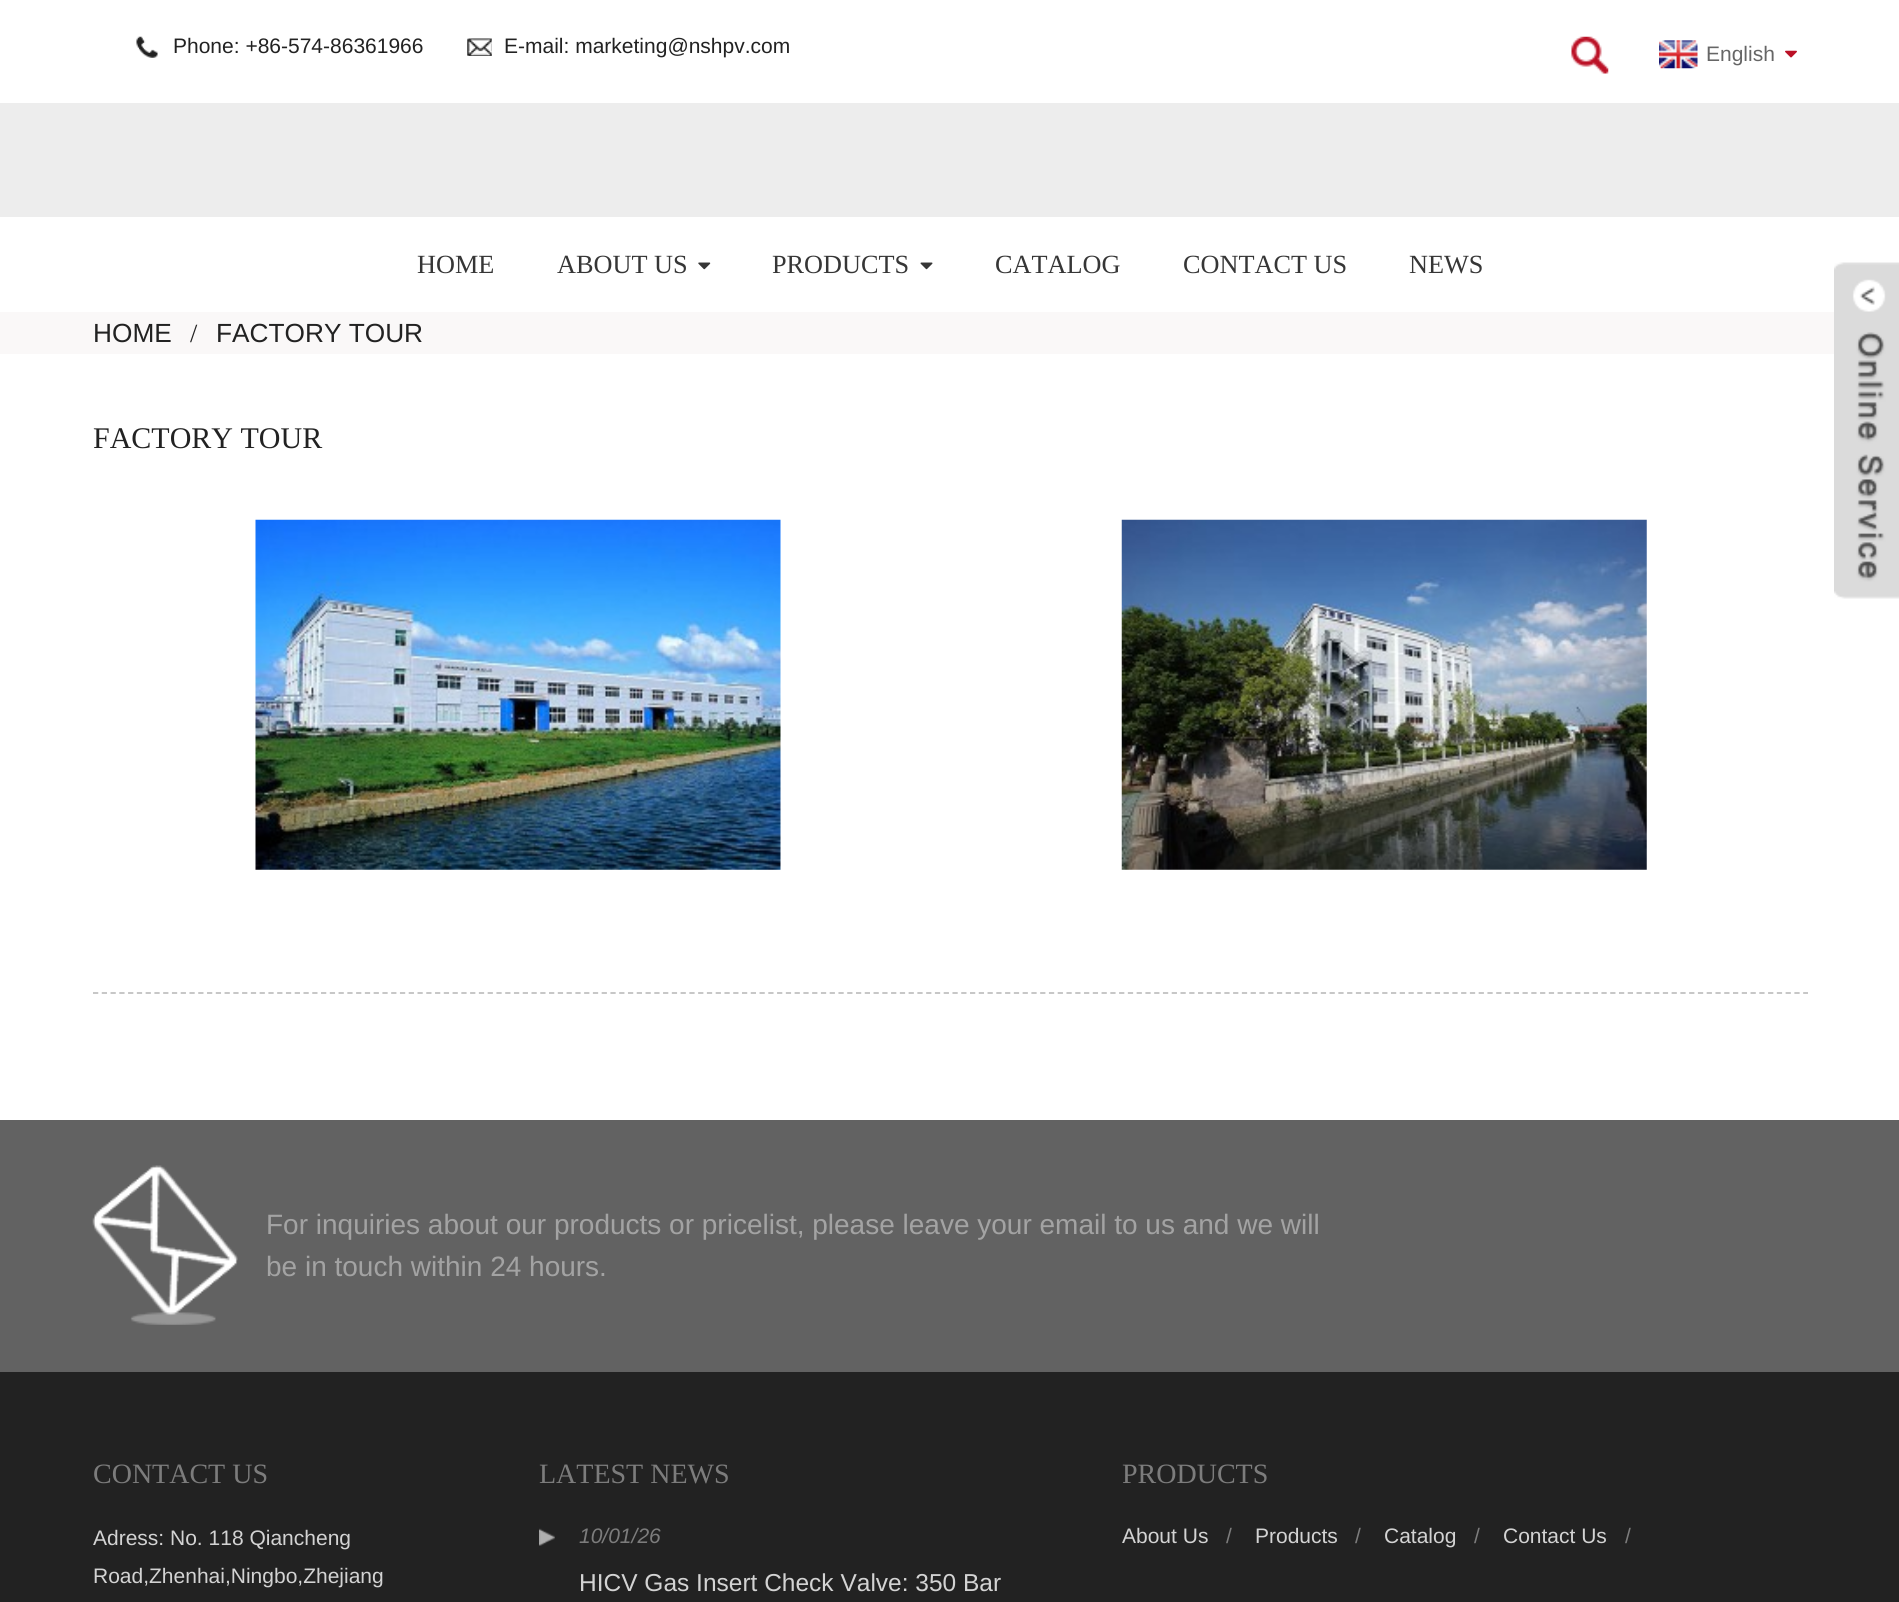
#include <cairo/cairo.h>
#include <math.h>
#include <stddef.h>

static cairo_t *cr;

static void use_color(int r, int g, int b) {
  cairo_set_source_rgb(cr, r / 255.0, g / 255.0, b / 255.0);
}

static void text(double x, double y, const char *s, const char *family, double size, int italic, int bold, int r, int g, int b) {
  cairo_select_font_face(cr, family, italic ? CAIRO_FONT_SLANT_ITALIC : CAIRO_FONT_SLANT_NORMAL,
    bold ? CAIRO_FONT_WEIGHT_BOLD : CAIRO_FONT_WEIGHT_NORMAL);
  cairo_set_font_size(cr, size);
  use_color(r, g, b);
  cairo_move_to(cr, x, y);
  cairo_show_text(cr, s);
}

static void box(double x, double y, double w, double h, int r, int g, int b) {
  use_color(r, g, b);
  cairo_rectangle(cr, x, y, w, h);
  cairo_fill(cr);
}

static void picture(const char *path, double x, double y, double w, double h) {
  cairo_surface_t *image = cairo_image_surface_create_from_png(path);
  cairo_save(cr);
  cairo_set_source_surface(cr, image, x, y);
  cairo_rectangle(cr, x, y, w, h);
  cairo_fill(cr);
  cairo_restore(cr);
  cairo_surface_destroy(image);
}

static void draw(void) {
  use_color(255, 255, 255);
  cairo_paint(cr);
  picture("img_01.png", 136, 36, 22, 22);
  picture("img_02.png", 467, 38, 25, 18);
  picture("img_03.png", 1571, 36, 38, 38);
  picture("img_04.png", 1659, 40, 39, 29);
  picture("img_05.png", 1785, 50, 12, 8);
  box(0, 103, 1899, 114, 237, 237, 237);
  picture("img_06.png", 698, 262, 13, 8);
  picture("img_07.png", 920, 262, 13, 8);
  box(0, 312, 1834, 42, 250, 248, 248);
  picture("img_08.png", 1834, 262, 65, 337);
  picture("img_09.png", 255, 519, 526, 351);
  picture("img_10.png", 1121, 519, 526, 351);
  cairo_new_path(cr);
  cairo_move_to(cr, 93, 993);
  cairo_line_to(cr, 1808, 993);
  use_color(193, 193, 193);
  cairo_set_line_width(cr, 1.8);
  cairo_set_dash(cr, (double[]){5.25, 3.52}, 2, 0);
  cairo_stroke(cr);
  box(0, 1372, 1899, 230, 34, 34, 34);
  box(0, 1120, 1899, 252, 98, 98, 98);
  picture("img_11.png", 92, 1165, 146, 160);
  picture("img_12.png", 539, 1528, 16, 18);
  text(173, 53, "Phone: +86-574-86361966", "Liberation Sans", 21, 0, 0, 34, 34, 34);
  text(504, 53, "E-mail: marketing@nshpv.com", "Liberation Sans", 21, 0, 0, 34, 34, 34);
  text(1706, 61, "English", "Liberation Sans", 21, 0, 0, 102, 102, 102);
  text(417, 273, "HOME", "Liberation Serif", 26.25, 0, 0, 54, 54, 54);
  text(557, 273, "ABOUT US", "Liberation Serif", 26.25, 0, 0, 54, 54, 54);
  text(772, 273, "PRODUCTS", "Liberation Serif", 26.25, 0, 0, 54, 54, 54);
  text(995, 273, "CATALOG", "Liberation Serif", 26.25, 0, 0, 54, 54, 54);
  text(1183, 273, "CONTACT US", "Liberation Serif", 26.25, 0, 0, 54, 54, 54);
  text(1409, 273, "NEWS", "Liberation Serif", 26.25, 0, 0, 54, 54, 54);
  text(93, 342, "HOME", "Liberation Sans", 26.25, 0, 0, 34, 34, 34);
  text(190, 342, "/", "Liberation Serif", 26.25, 0, 0, 34, 34, 34);
  text(216, 342, "FACTORY TOUR", "Liberation Sans", 26.25, 0, 0, 34, 34, 34);
  text(93, 448, "FACTORY TOUR", "Liberation Serif", 30, 0, 0, 34, 34, 34);
  text(266, 1234, "For inquiries about our products or pricelist, please leave your email to us and we will", "Liberation Sans", 28, 0, 0, 163, 163, 163);
  text(266, 1276, "be in touch within 24 hours.", "Liberation Sans", 28, 0, 0, 163, 163, 163);
  text(93, 1483, "CONTACT US", "Liberation Serif", 28, 0, 0, 124, 124, 124);
  text(93, 1545, "Adress: No. 118 Qiancheng", "Liberation Sans", 21, 0, 0, 211, 211, 211);
  text(93, 1583, "Road,Zhenhai,Ningbo,Zhejiang", "Liberation Sans", 21, 0, 0, 211, 211, 211);
  text(539, 1483, "LATEST NEWS", "Liberation Serif", 28, 0, 0, 124, 124, 124);
  text(579, 1543, "10/01/26", "Liberation Sans", 21, 1, 0, 124, 124, 124);
  text(579, 1591, "HICV Gas Insert Check Valve: 350 Bar", "Liberation Sans", 24.5, 0, 0, 211, 211, 211);
  text(1122, 1483, "PRODUCTS", "Liberation Serif", 28, 0, 0, 124, 124, 124);
  text(1122, 1543, "About Us", "Liberation Sans", 21, 0, 0, 211, 211, 211);
  text(1226, 1543, "/", "Liberation Sans", 21, 0, 0, 124, 124, 124);
  text(1255, 1543, "Products", "Liberation Sans", 21, 0, 0, 211, 211, 211);
  text(1355, 1543, "/", "Liberation Sans", 21, 0, 0, 124, 124, 124);
  text(1384, 1543, "Catalog", "Liberation Sans", 21, 0, 0, 211, 211, 211);
  text(1474, 1543, "/", "Liberation Sans", 21, 0, 0, 124, 124, 124);
  text(1503, 1543, "Contact Us", "Liberation Sans", 21, 0, 0, 211, 211, 211);
  text(1625, 1543, "/", "Liberation Sans", 21, 0, 0, 124, 124, 124);
}

int main(void) {
  cairo_surface_t *surface = cairo_image_surface_create(CAIRO_FORMAT_RGB24, 1899, 1602);
  cr = cairo_create(surface);
  cairo_font_options_t *options = cairo_font_options_create();
  cairo_font_options_set_hint_metrics(options, CAIRO_HINT_METRICS_OFF);
  cairo_font_options_set_hint_style(options, CAIRO_HINT_STYLE_NONE);
  cairo_set_font_options(cr, options);
  cairo_set_miter_limit(cr, 4);
  draw();
  cairo_surface_write_to_png(surface, "out.png");
  cairo_font_options_destroy(options);
  cairo_destroy(cr);
  cairo_surface_destroy(surface);
  return 0;
}
